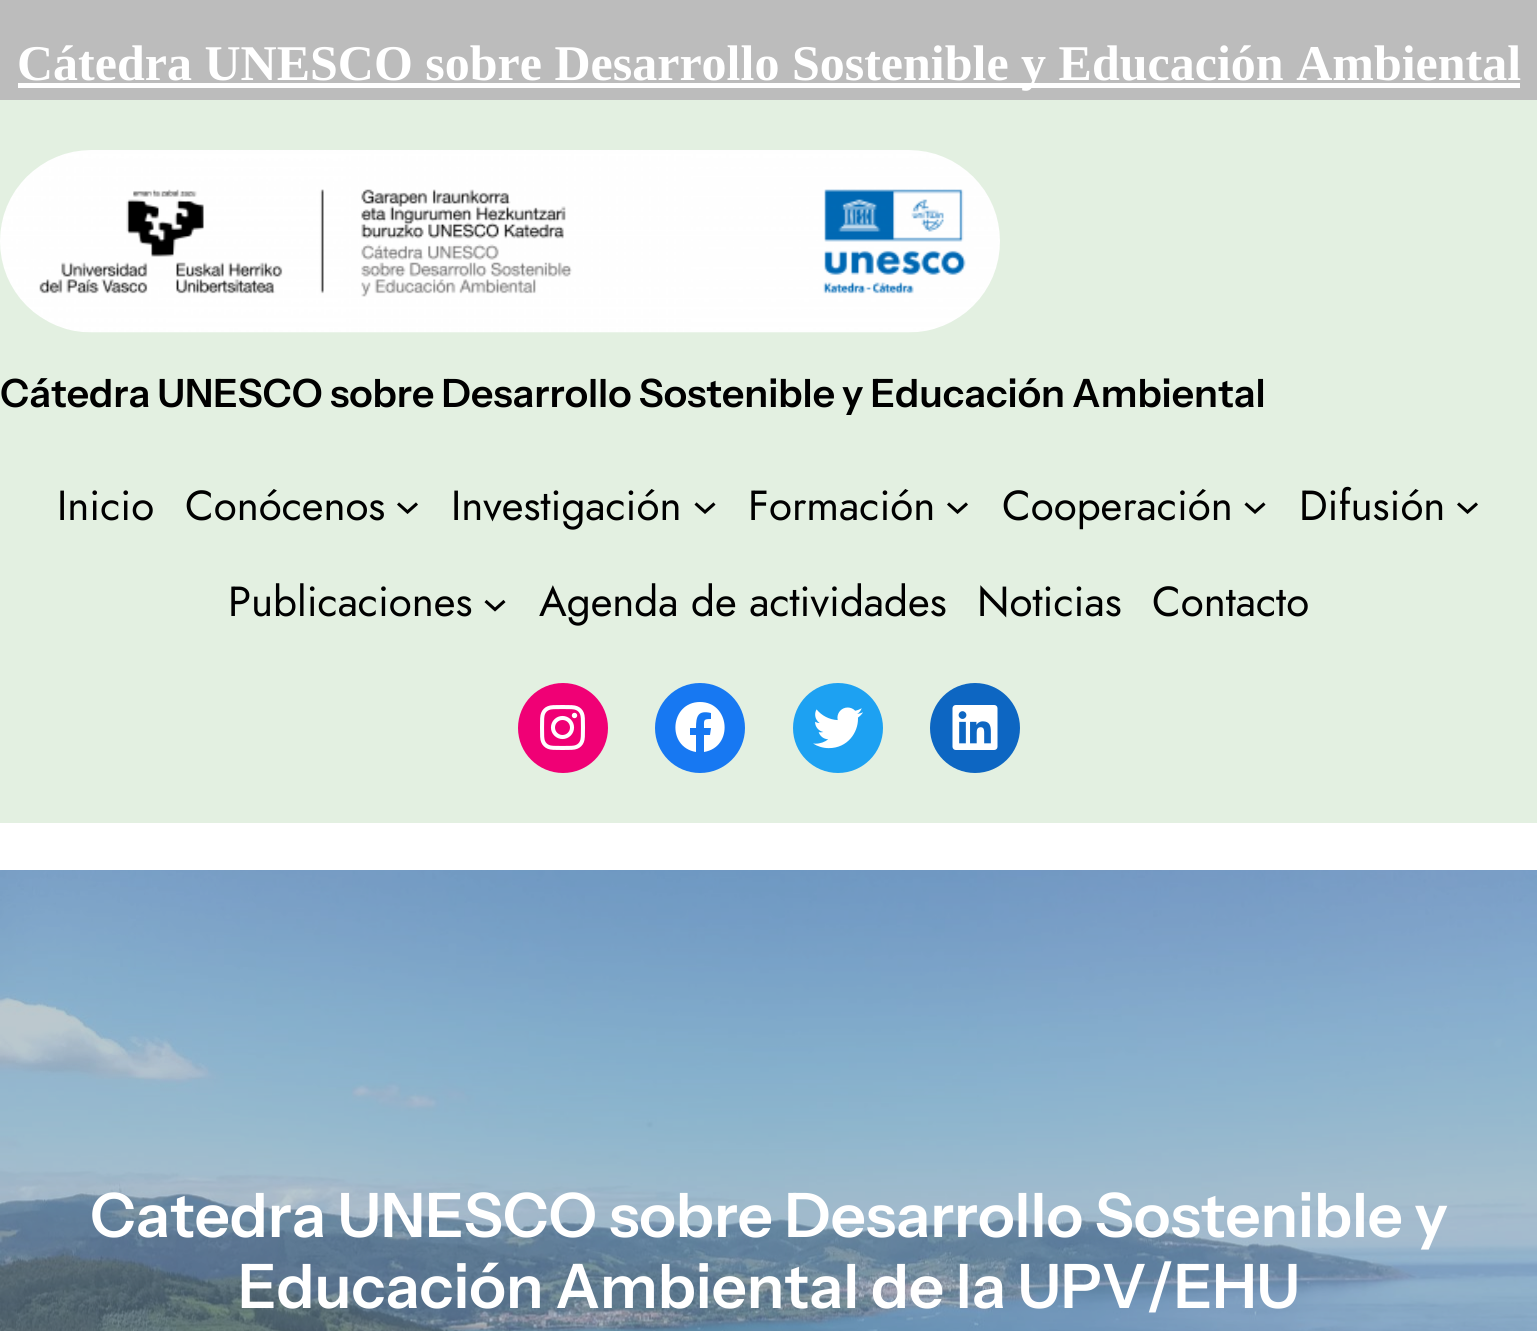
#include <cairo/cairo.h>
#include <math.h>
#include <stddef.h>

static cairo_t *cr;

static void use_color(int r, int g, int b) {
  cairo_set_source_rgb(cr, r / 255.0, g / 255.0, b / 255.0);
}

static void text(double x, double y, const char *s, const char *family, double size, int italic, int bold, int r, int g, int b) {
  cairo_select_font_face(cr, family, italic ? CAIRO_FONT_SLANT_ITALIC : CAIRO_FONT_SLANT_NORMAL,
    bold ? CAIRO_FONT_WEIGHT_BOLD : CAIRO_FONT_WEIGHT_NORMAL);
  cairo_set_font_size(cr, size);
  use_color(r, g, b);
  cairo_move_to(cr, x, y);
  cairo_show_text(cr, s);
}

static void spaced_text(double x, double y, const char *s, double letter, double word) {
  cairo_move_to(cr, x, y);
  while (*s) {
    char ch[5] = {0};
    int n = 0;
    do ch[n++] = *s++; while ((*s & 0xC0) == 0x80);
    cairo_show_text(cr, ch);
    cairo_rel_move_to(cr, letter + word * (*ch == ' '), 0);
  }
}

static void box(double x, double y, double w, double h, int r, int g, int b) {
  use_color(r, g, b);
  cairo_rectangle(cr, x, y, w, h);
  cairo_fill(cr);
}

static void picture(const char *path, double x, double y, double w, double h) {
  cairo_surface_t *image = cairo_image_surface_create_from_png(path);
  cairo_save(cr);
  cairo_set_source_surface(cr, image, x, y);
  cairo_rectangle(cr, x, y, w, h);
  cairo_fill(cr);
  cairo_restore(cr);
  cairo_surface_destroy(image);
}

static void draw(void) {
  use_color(255, 255, 255);
  cairo_paint(cr);
  box(0, 0, 1537, 100, 188, 188, 188);
  box(18, 83, 1502, 5, 255, 255, 255);
  box(0, 100, 1537, 723, 227, 240, 225);
  picture("img_01.png", 0, 150, 1000, 183);
  cairo_new_path(cr);
  cairo_move_to(cr, 398, 503.5);
  cairo_line_to(cr, 407.5, 512);
  cairo_line_to(cr, 417, 503.5);
  use_color(0, 0, 0);
  cairo_set_line_width(cr, 3.1);
  cairo_stroke(cr);
  cairo_new_path(cr);
  cairo_move_to(cr, 695.5, 503.5);
  cairo_line_to(cr, 705, 512);
  cairo_line_to(cr, 714.5, 503.5);
  cairo_stroke(cr);
  cairo_new_path(cr);
  cairo_move_to(cr, 948, 503.5);
  cairo_line_to(cr, 957.5, 512);
  cairo_line_to(cr, 967, 503.5);
  cairo_stroke(cr);
  cairo_new_path(cr);
  cairo_move_to(cr, 1245.5, 503.5);
  cairo_line_to(cr, 1255, 512);
  cairo_line_to(cr, 1264.5, 503.5);
  cairo_stroke(cr);
  cairo_new_path(cr);
  cairo_move_to(cr, 1458, 503.5);
  cairo_line_to(cr, 1467.5, 512);
  cairo_line_to(cr, 1477, 503.5);
  cairo_stroke(cr);
  cairo_new_path(cr);
  cairo_move_to(cr, 485.5, 601);
  cairo_line_to(cr, 495, 609.5);
  cairo_line_to(cr, 504.5, 601);
  cairo_stroke(cr);
  use_color(240, 0, 117);
  cairo_arc(cr, 563, 728, 45, 0, 2 * M_PI);
  cairo_fill(cr);
  picture("img_02.png", 540, 705, 45, 45);
  use_color(23, 120, 242);
  cairo_arc(cr, 700, 728, 45, 0, 2 * M_PI);
  cairo_fill(cr);
  use_color(255, 255, 255);
  cairo_new_path(cr);
  cairo_move_to(cr, 700, 702);
  cairo_curve_to(cr, 670, 702, 666, 747, 696, 752);
  cairo_line_to(cr, 696, 735);
  cairo_line_to(cr, 690, 735);
  cairo_line_to(cr, 690, 728);
  cairo_line_to(cr, 696, 728);
  cairo_curve_to(cr, 696, 716, 698, 710, 711, 713);
  cairo_line_to(cr, 711, 719);
  cairo_curve_to(cr, 703, 719, 704, 720, 704, 728);
  cairo_line_to(cr, 711, 728);
  cairo_line_to(cr, 710, 735);
  cairo_line_to(cr, 704, 735);
  cairo_line_to(cr, 704, 752);
  cairo_curve_to(cr, 734, 747, 730, 702, 700, 702);
  cairo_close_path(cr);
  cairo_fill(cr);
  use_color(29, 161, 242);
  cairo_arc(cr, 838, 728, 45, 0, 2 * M_PI);
  cairo_fill(cr);
  picture("img_03.png", 813, 707, 50, 42);
  use_color(13, 102, 194);
  cairo_arc(cr, 975, 728, 45, 0, 2 * M_PI);
  cairo_fill(cr);
  picture("img_04.png", 952, 705, 46, 45);
  picture("img_05.png", 0, 870, 1537, 461);
  text(17, 80, "Cátedra UNESCO sobre Desarrollo Sostenible y Educación Ambiental", "Liberation Serif", 50, 0, 1, 255, 255, 255);
  cairo_select_font_face(cr, "Instrument Sans SemiBold", CAIRO_FONT_SLANT_NORMAL, CAIRO_FONT_WEIGHT_NORMAL);
  cairo_set_font_size(cr, 39);
  use_color(0, 0, 0);
  spaced_text(0, 407, "Cátedra UNESCO sobre Desarrollo Sostenible y Educación Ambiental", 0, -0.25);
  text(57, 520, "Inicio", "Jost", 42, 0, 0, 0, 0, 0);
  text(185, 520, "Conócenos", "Jost", 42, 0, 0, 0, 0, 0);
  text(451, 520, "Investigación", "Jost", 42, 0, 0, 0, 0, 0);
  text(748, 520, "Formación", "Jost", 42, 0, 0, 0, 0, 0);
  text(1002, 520, "Cooperación", "Jost", 42, 0, 0, 0, 0, 0);
  text(1299, 520, "Difusión", "Jost", 42, 0, 0, 0, 0, 0);
  text(228, 616, "Publicaciones", "Jost", 42, 0, 0, 0, 0, 0);
  text(539, 616, "Agenda de actividades", "Jost", 42, 0, 0, 0, 0, 0);
  text(977, 616, "Noticias", "Jost", 42, 0, 0, 0, 0, 0);
  text(1152, 616, "Contacto", "Jost", 42, 0, 0, 0, 0, 0);
  text(90, 1237, "Catedra UNESCO sobre Desarrollo Sostenible y", "Instrument Sans SemiBold", 61.25, 0, 0, 255, 255, 255);
  text(238, 1308, "Educación Ambiental de la UPV/EHU", "Instrument Sans SemiBold", 61.25, 0, 0, 255, 255, 255);
}

int main(void) {
  cairo_surface_t *surface = cairo_image_surface_create(CAIRO_FORMAT_RGB24, 1537, 1331);
  cr = cairo_create(surface);
  cairo_font_options_t *options = cairo_font_options_create();
  cairo_font_options_set_hint_metrics(options, CAIRO_HINT_METRICS_OFF);
  cairo_font_options_set_hint_style(options, CAIRO_HINT_STYLE_NONE);
  cairo_set_font_options(cr, options);
  cairo_set_miter_limit(cr, 4);
  draw();
  cairo_surface_write_to_png(surface, "out.png");
  cairo_font_options_destroy(options);
  cairo_destroy(cr);
  cairo_surface_destroy(surface);
  return 0;
}
